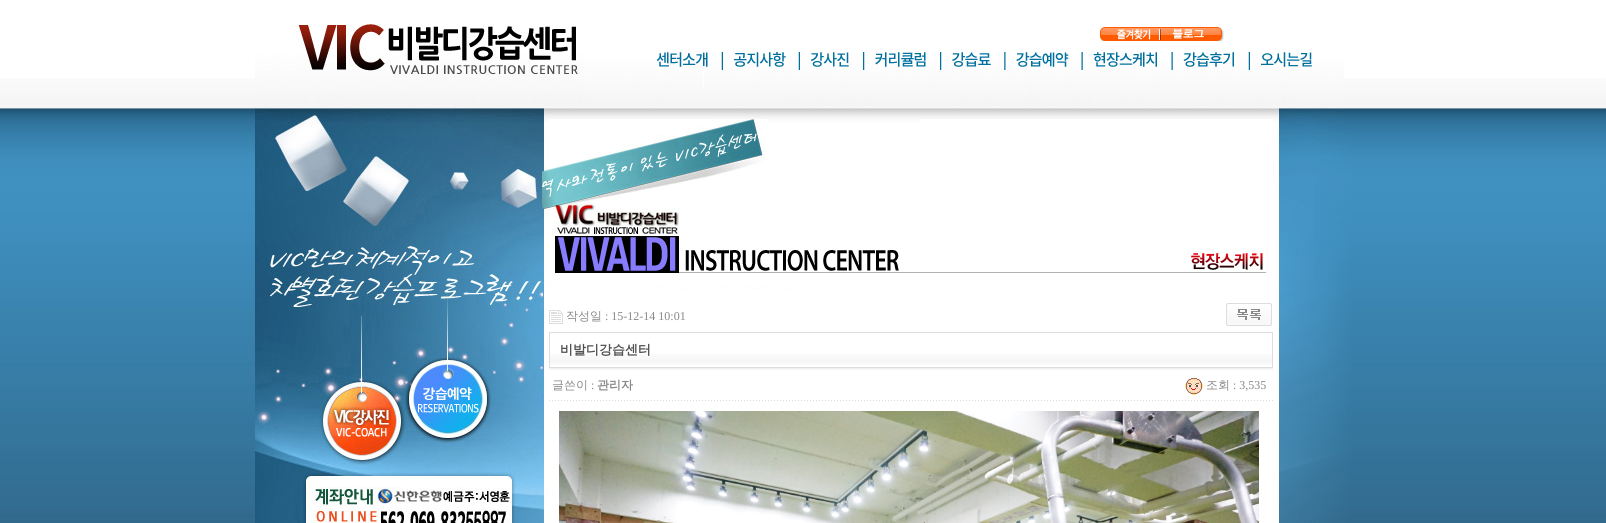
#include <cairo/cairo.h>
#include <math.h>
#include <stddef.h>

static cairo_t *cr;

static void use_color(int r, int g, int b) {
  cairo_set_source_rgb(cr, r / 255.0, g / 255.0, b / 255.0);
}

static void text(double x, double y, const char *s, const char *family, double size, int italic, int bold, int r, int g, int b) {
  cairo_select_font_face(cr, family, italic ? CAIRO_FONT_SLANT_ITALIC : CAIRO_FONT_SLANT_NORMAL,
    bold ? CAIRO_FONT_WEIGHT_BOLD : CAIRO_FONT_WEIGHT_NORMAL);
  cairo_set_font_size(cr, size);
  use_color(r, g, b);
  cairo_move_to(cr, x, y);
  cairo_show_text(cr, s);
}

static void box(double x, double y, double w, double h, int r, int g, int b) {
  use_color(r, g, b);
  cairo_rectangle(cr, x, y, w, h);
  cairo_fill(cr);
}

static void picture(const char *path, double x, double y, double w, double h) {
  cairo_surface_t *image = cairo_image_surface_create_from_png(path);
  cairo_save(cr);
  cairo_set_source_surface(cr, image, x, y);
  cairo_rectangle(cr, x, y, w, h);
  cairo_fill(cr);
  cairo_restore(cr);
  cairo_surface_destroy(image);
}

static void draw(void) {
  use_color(255, 255, 255);
  cairo_paint(cr);
  picture("img_01.png", 0, 78, 1606, 41);
  picture("img_02.png", 255, 24, 1089, 95);
  picture("img_03.png", 1100, 27, 57, 14);
  picture("img_04.png", 1157, 27, 7, 14);
  picture("img_05.png", 1164, 27, 60, 14);
  picture("img_06.png", 0, 119, 1606, 404);
  picture("img_07.png", 255, 119, 294, 404);
  box(549, 119, 724, 404, 255, 255, 255);
  picture("img_08.png", 549, 119, 720, 170);
  picture("img_09.png", 549, 310, 14, 14);
  picture("img_10.png", 1226, 303, 46, 23);
  picture("img_11.png", 550, 354, 722, 11);
  cairo_rectangle(cr, 549.5, 332.5, 723, 35);
  use_color(221, 221, 221);
  cairo_set_line_width(cr, 1);
  cairo_stroke(cr);
  picture("img_12.png", 549, 368, 724, 2);
  picture("img_13.png", 549, 400, 724, 1);
  picture("img_14.png", 1185, 378, 18, 17);
  picture("img_15.png", 559, 411, 700, 112);
  picture("img_16.png", 1273, 119, 79, 404);
  text(566, 320, "작성일", "WenQuanYi Zen Hei Medium", 12, 0, 0, 136, 136, 136);
  text(605, 320, ": 15-12-14 10:01", "Liberation Serif", 12, 0, 0, 136, 136, 136);
  text(560, 354, "비발디강습센터", "WenQuanYi Zen Hei", 13, 0, 1, 80, 80, 80);
  text(552, 389, "글쓴이", "WenQuanYi Zen Hei Medium", 12, 0, 0, 136, 136, 136);
  text(591, 389, ":", "Liberation Serif", 12, 0, 0, 136, 136, 136);
  text(597, 389, "관리자", "WenQuanYi Zen Hei", 12, 0, 1, 136, 136, 136);
  text(1206, 389, "조회", "WenQuanYi Zen Hei Medium", 12, 0, 0, 136, 136, 136);
  text(1233, 389, ": 3,535", "Liberation Serif", 12, 0, 0, 136, 136, 136);
}

int main(void) {
  cairo_surface_t *surface = cairo_image_surface_create(CAIRO_FORMAT_RGB24, 1606, 523);
  cr = cairo_create(surface);
  cairo_font_options_t *options = cairo_font_options_create();
  cairo_font_options_set_hint_metrics(options, CAIRO_HINT_METRICS_OFF);
  cairo_font_options_set_hint_style(options, CAIRO_HINT_STYLE_NONE);
  cairo_set_font_options(cr, options);
  cairo_set_miter_limit(cr, 4);
  draw();
  cairo_surface_write_to_png(surface, "out.png");
  cairo_font_options_destroy(options);
  cairo_destroy(cr);
  cairo_surface_destroy(surface);
  return 0;
}
